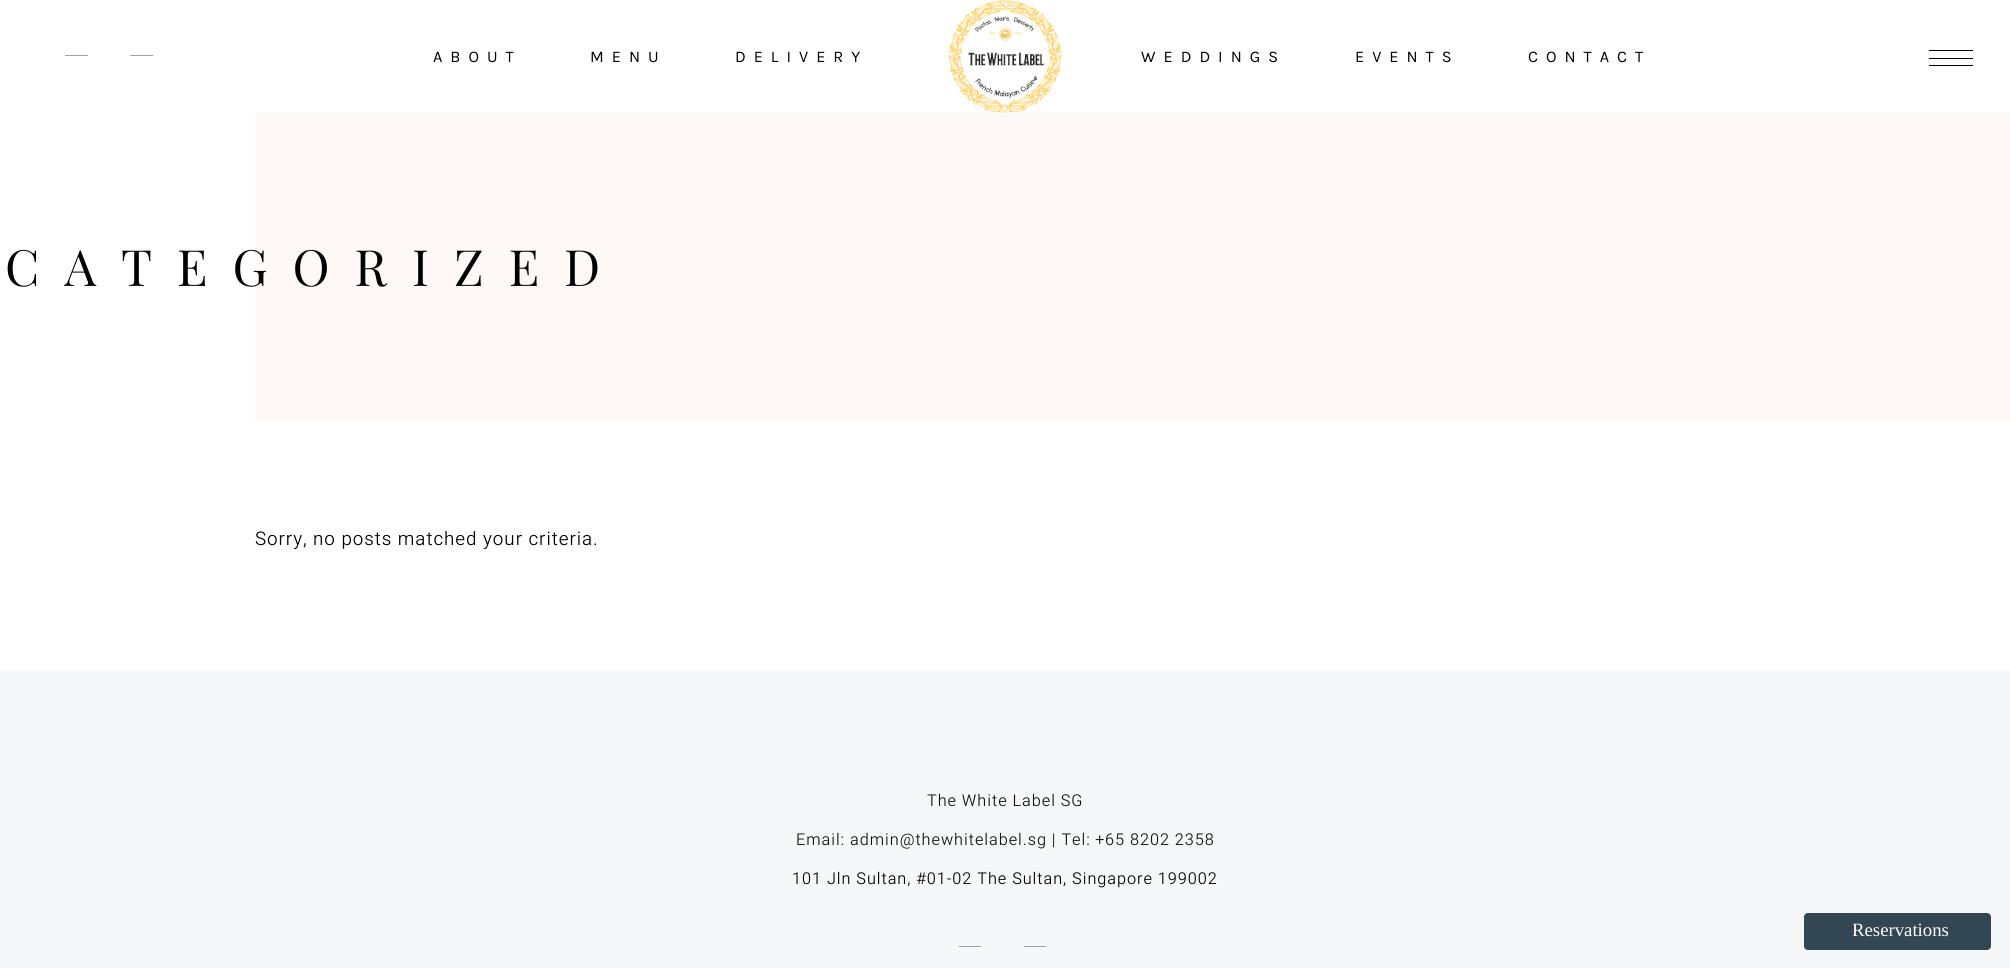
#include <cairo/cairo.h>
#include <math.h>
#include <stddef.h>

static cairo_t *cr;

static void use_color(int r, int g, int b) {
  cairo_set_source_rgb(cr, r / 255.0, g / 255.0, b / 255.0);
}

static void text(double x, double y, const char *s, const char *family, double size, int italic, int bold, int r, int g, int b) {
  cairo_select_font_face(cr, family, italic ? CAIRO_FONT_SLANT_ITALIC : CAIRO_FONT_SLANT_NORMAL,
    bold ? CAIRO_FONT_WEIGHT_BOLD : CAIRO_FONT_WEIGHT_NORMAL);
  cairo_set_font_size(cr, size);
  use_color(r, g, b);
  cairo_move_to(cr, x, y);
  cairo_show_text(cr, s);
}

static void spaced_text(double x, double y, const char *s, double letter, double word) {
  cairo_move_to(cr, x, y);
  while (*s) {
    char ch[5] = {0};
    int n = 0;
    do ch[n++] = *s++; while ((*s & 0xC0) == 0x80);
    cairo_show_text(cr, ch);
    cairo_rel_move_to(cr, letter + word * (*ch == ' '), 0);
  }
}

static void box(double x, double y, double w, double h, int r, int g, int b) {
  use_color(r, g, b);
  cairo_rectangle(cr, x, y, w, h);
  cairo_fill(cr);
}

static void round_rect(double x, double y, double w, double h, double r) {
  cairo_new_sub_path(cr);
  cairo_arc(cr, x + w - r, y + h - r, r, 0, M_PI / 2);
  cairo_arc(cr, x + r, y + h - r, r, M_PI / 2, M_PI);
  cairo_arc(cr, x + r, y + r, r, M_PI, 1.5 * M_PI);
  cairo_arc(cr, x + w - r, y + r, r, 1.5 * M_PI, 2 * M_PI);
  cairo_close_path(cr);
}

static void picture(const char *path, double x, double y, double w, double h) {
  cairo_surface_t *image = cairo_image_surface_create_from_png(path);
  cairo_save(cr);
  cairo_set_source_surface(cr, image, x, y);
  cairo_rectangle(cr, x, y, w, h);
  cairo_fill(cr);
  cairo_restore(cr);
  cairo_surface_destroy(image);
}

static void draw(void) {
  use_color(255, 255, 255);
  cairo_paint(cr);
  box(65, 55, 23, 1, 161, 161, 161);
  box(130, 55, 23, 1, 161, 161, 161);
  picture("img_01.png", 948, 0, 114, 113);
  box(1929, 50, 44, 1, 0, 0, 0);
  box(1929, 58, 44, 1, 0, 0, 0);
  box(1929, 65, 44, 1, 0, 0, 0);
  box(255, 113, 1755, 307, 254, 248, 247);
  box(0, 670, 2010, 298, 245, 247, 248);
  box(959, 946, 22, 1, 161, 161, 161);
  box(1024, 946, 22, 1, 161, 161, 161);
  use_color(50, 70, 84);
  round_rect(1804, 913, 187, 37, 4);
  cairo_fill(cr);
  cairo_select_font_face(cr, "Karla", CAIRO_FONT_SLANT_NORMAL, CAIRO_FONT_WEIGHT_NORMAL);
  cairo_set_font_size(cr, 16.25);
  use_color(0, 0, 0);
  spaced_text(433, 62, "ABOUT", 8, 0);
  spaced_text(590, 62, "MENU", 8, 0);
  spaced_text(735, 62, "DELIVERY", 8, 0);
  spaced_text(1141, 62, "WEDDINGS", 8, 0);
  spaced_text(1355, 62, "EVENTS", 8, 0);
  spaced_text(1528, 62, "CONTACT", 8, 0);
  cairo_select_font_face(cr, "Playfair Display", CAIRO_FONT_SLANT_NORMAL, CAIRO_FONT_WEIGHT_NORMAL);
  cairo_set_font_size(cr, 50);
  spaced_text(5, 286, "CATEGORIZED", 25, 0);
  cairo_select_font_face(cr, "Heebo Light", CAIRO_FONT_SLANT_NORMAL, CAIRO_FONT_WEIGHT_NORMAL);
  cairo_set_font_size(cr, 18.75);
  spaced_text(255, 545, "Sorry, no posts matched your criteria.", 0.95, 0);
  cairo_set_font_size(cr, 16.25);
  use_color(17, 17, 17);
  spaced_text(927, 806, "The White Label SG", 0.95, 0);
  spaced_text(796, 845, "Email: admin@thewhitelabel.sg | Tel: +65 8202 2358", 0.95, 0);
  use_color(0, 0, 0);
  spaced_text(792, 884, "101 Jln Sultan, #01-02 The Sultan, Singapore 199002", 0.95, 0);
  cairo_save(cr);
  cairo_rectangle(cr, 1853, 921, 96, 19);
  cairo_clip(cr);
  text(1852, 936, "Reservations", "Liberation Serif", 18.75, 0, 0, 255, 255, 255);
  cairo_restore(cr);
}

int main(void) {
  cairo_surface_t *surface = cairo_image_surface_create(CAIRO_FORMAT_RGB24, 2010, 968);
  cr = cairo_create(surface);
  cairo_font_options_t *options = cairo_font_options_create();
  cairo_font_options_set_hint_metrics(options, CAIRO_HINT_METRICS_OFF);
  cairo_font_options_set_hint_style(options, CAIRO_HINT_STYLE_NONE);
  cairo_set_font_options(cr, options);
  cairo_set_miter_limit(cr, 4);
  draw();
  cairo_surface_write_to_png(surface, "out.png");
  cairo_font_options_destroy(options);
  cairo_destroy(cr);
  cairo_surface_destroy(surface);
  return 0;
}
